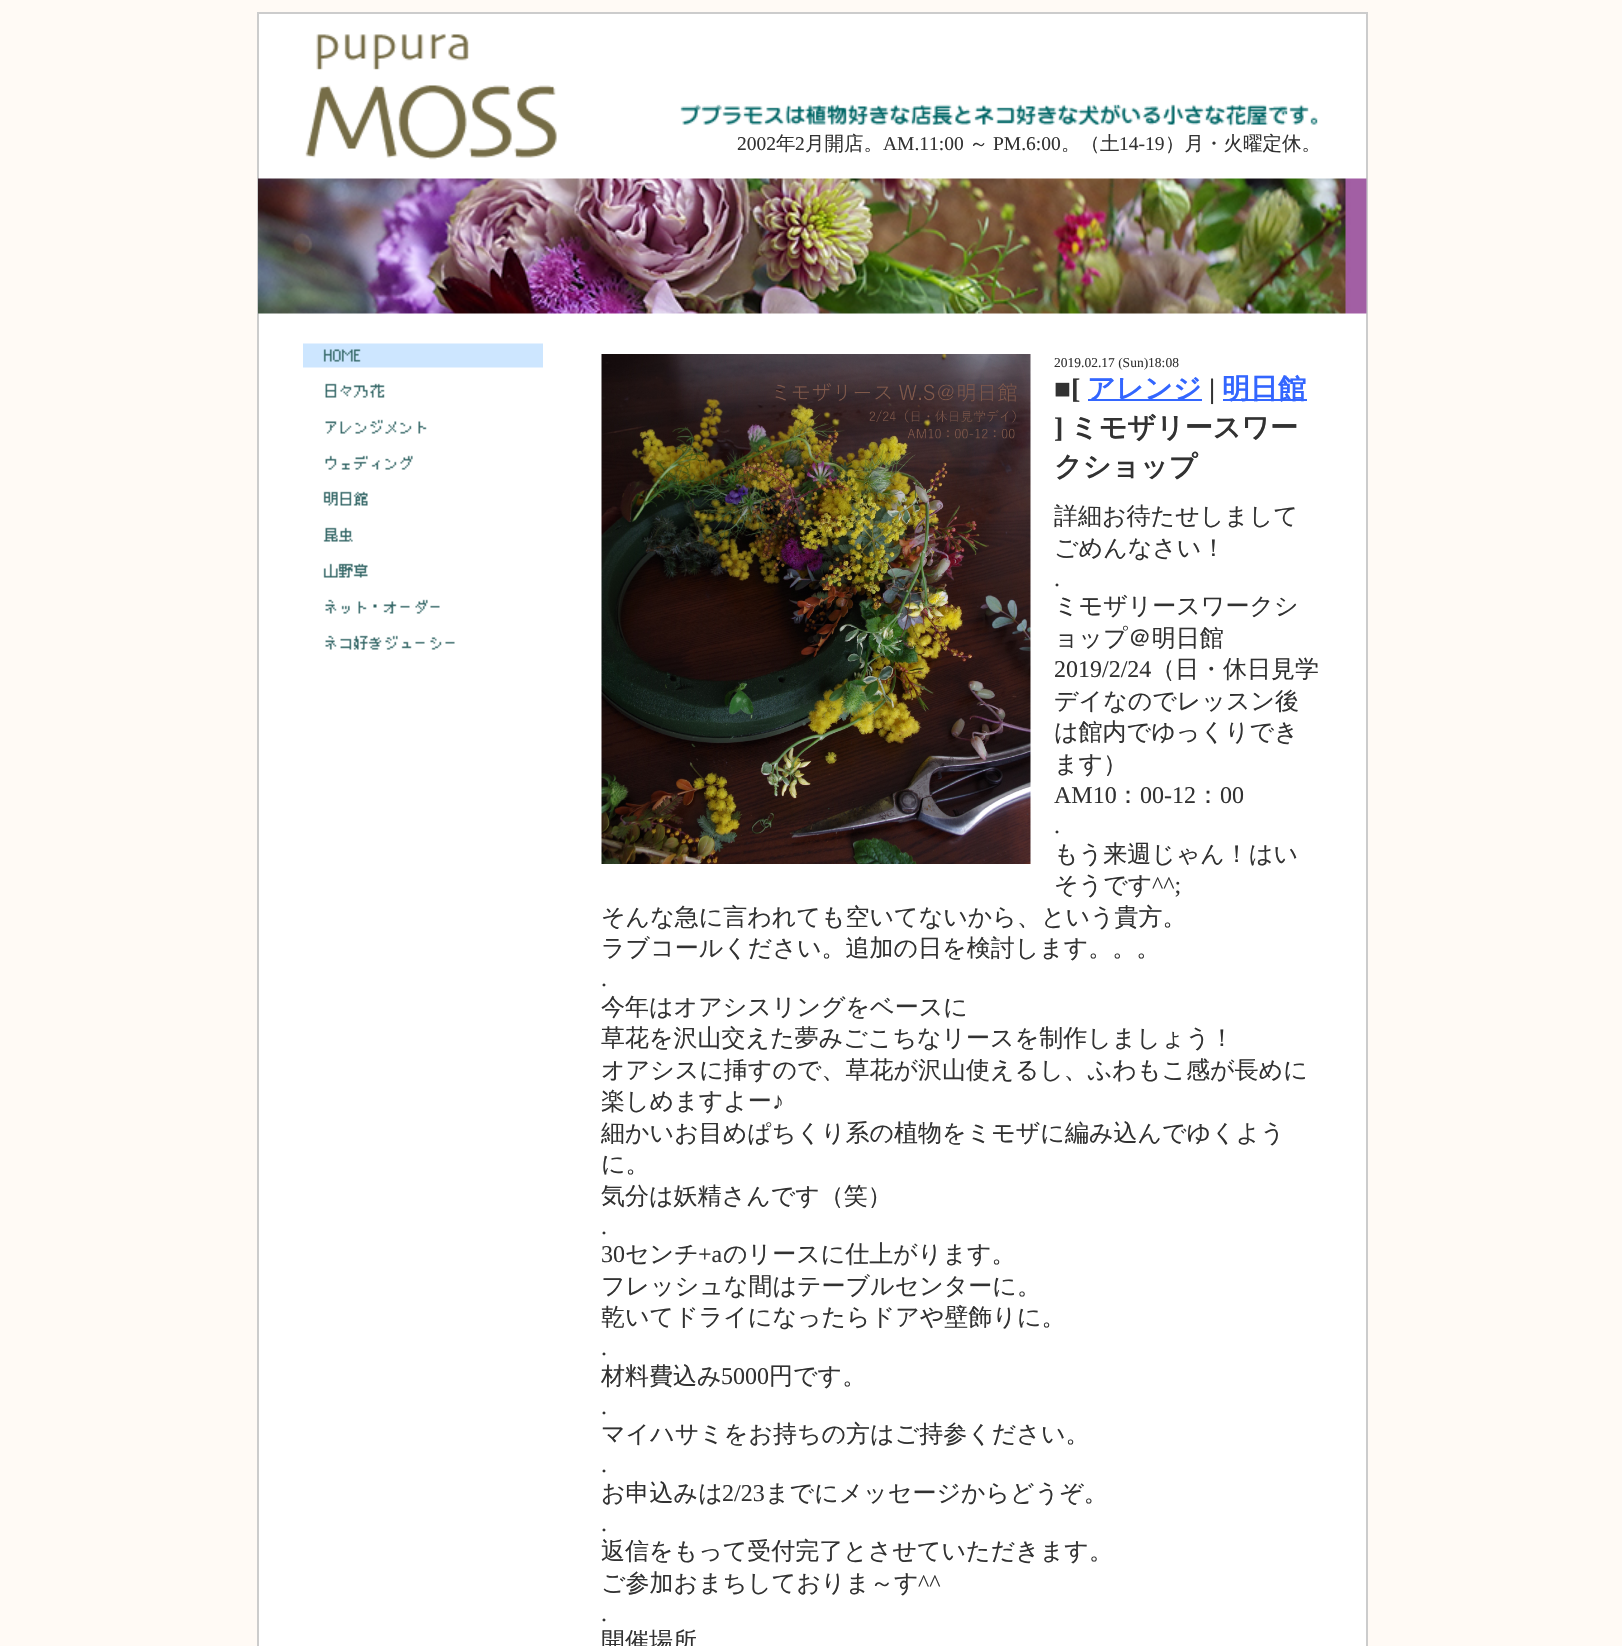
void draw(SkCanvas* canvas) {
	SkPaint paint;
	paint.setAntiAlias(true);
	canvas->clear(0xfffffaf5);
	paint.setColor(0xffffffff);
	canvas->drawRect(SkRect::MakeXYWH(258, 13, 1109, 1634), paint);
	paint.setStroke(true);
	paint.setStrokeWidth(2);
	paint.setColor(0xffcccccc);
	canvas->drawRect(SkRect::MakeXYWH(258, 13, 1109, 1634), paint);
	canvas->drawImageRect(SkImages::DeferredFromEncodedData(SkData::MakeFromFileName("img1.png")), SkRect::MakeXYWH(305, 33, 252, 127), SkSamplingOptions());
	canvas->drawImageRect(SkImages::DeferredFromEncodedData(SkData::MakeFromFileName("img2.png")), SkRect::MakeXYWH(680, 104, 638, 23), SkSamplingOptions());
	SkFont f1(fontMgr->matchFamilyStyle("Liberation Serif", SkFontStyle::Normal()), 19.5);
	f1.setSubpixel(true);
	paint.setStroke(false);
	paint.setColor(0xff323232);
	canvas->drawString("2002", 737, 150, f1, paint);
	SkFont f2(fontMgr->matchFamilyStyle("WenQuanYi Zen Hei", SkFontStyle(500, SkFontStyle::kNormal_Width, SkFontStyle::kUpright_Slant)), 19.5);
	f2.setSubpixel(true);
	canvas->drawString("年", 776, 150, f2, paint);
	canvas->drawString("2", 795, 150, f1, paint);
	canvas->drawString("月開店。", 805, 150, f2, paint);
	canvas->drawString("AM.11:00", 883, 150, f1, paint);
	canvas->drawString("～", 969, 150, f2, paint);
	canvas->drawString("PM.6:00", 993, 150, f1, paint);
	canvas->drawString("。（土", 1061, 150, f2, paint);
	canvas->drawString("14-19", 1119, 150, f1, paint);
	canvas->drawString("）月・火曜定休。", 1165, 150, f2, paint);
	canvas->drawImageRect(SkImages::DeferredFromEncodedData(SkData::MakeFromFileName("img3.png")), SkRect::MakeXYWH(258, 178, 1109, 136), SkSamplingOptions());
	canvas->drawImageRect(SkImages::DeferredFromEncodedData(SkData::MakeFromFileName("img4.png")), SkRect::MakeXYWH(303, 343, 240, 25), SkSamplingOptions());
	canvas->drawImageRect(SkImages::DeferredFromEncodedData(SkData::MakeFromFileName("img5.png")), SkRect::MakeXYWH(325, 383, 60, 15), SkSamplingOptions());
	canvas->drawImageRect(SkImages::DeferredFromEncodedData(SkData::MakeFromFileName("img6.png")), SkRect::MakeXYWH(325, 419, 102, 15), SkSamplingOptions());
	canvas->drawImageRect(SkImages::DeferredFromEncodedData(SkData::MakeFromFileName("img7.png")), SkRect::MakeXYWH(325, 455, 88, 15), SkSamplingOptions());
	canvas->drawImageRect(SkImages::DeferredFromEncodedData(SkData::MakeFromFileName("img8.png")), SkRect::MakeXYWH(323, 491, 45, 15), SkSamplingOptions());
	canvas->drawImageRect(SkImages::DeferredFromEncodedData(SkData::MakeFromFileName("img9.png")), SkRect::MakeXYWH(323, 527, 30, 15), SkSamplingOptions());
	canvas->drawImageRect(SkImages::DeferredFromEncodedData(SkData::MakeFromFileName("img10.png")), SkRect::MakeXYWH(323, 563, 45, 15), SkSamplingOptions());
	canvas->drawImageRect(SkImages::DeferredFromEncodedData(SkData::MakeFromFileName("img11.png")), SkRect::MakeXYWH(325, 599, 115, 15), SkSamplingOptions());
	canvas->drawImageRect(SkImages::DeferredFromEncodedData(SkData::MakeFromFileName("img12.png")), SkRect::MakeXYWH(325, 635, 130, 15), SkSamplingOptions());
	canvas->drawImageRect(SkImages::DeferredFromEncodedData(SkData::MakeFromFileName("img13.png")), SkRect::MakeXYWH(601, 354, 430, 510), SkSamplingOptions());
	SkFont f3(fontMgr->matchFamilyStyle("Liberation Serif", SkFontStyle::Normal()), 13.5);
	f3.setSubpixel(true);
	canvas->drawString("2019.02.17 (Sun)18:08", 1054, 367, f3, paint);
	SkFont f4(fontMgr->matchFamilyStyle("Liberation Serif", SkFontStyle::Bold()), 28);
	f4.setSubpixel(true);
	canvas->drawString("■[", 1054, 398, f4, paint);
	paint.setColor(0xff3366ff);
	canvas->drawRect(SkRect::MakeXYWH(1088, 399, 114, 2), paint);
	SkFont f5(fontMgr->matchFamilyStyle("WenQuanYi Zen Hei", SkFontStyle::Bold()), 28);
	f5.setSubpixel(true);
	canvas->drawString("アレンジ", 1087, 398, f5, paint);
	paint.setColor(0xff323232);
	canvas->drawString("|", 1209, 398, f4, paint);
	paint.setColor(0xff3366ff);
	canvas->drawRect(SkRect::MakeXYWH(1223, 399, 84, 2), paint);
	canvas->drawString("明日館", 1222, 398, f5, paint);
	paint.setColor(0xff323232);
	canvas->drawString("]", 1054, 437, f4, paint);
	canvas->drawString("ミモザリースワー", 1070, 437, f5, paint);
	canvas->drawString("クショップ", 1054, 476, f5, paint);
	SkFont f6(fontMgr->matchFamilyStyle("WenQuanYi Zen Hei", SkFontStyle(500, SkFontStyle::kNormal_Width, SkFontStyle::kUpright_Slant)), 24);
	f6.setSubpixel(true);
	canvas->drawString("詳細お待たせしまして", 1054, 524, f6, paint);
	canvas->drawString("ごめんなさい！", 1054, 556, f6, paint);
	SkFont f7(fontMgr->matchFamilyStyle("Liberation Serif", SkFontStyle::Normal()), 24);
	f7.setSubpixel(true);
	canvas->drawString(".", 1054, 586, f7, paint);
	canvas->drawString("ミモザリースワークシ", 1054, 614, f6, paint);
	canvas->drawString("ョップ＠明日館", 1054, 646, f6, paint);
	canvas->drawString("2019/2/24", 1054, 677, f7, paint);
	canvas->drawString("（日・休日見学", 1151, 677, f6, paint);
	canvas->drawString("デイなのでレッスン後", 1054, 709, f6, paint);
	canvas->drawString("は館内でゆっくりでき", 1054, 740, f6, paint);
	canvas->drawString("ます）", 1054, 772, f6, paint);
	canvas->drawString("AM10", 1054, 803, f7, paint);
	canvas->drawString("：", 1116, 803, f6, paint);
	canvas->drawString("00-12", 1140, 803, f7, paint);
	canvas->drawString("：", 1196, 803, f6, paint);
	canvas->drawString("00", 1220, 803, f7, paint);
	canvas->drawString(".", 1054, 833, f7, paint);
	canvas->drawString("もう来週じゃん！はい", 1054, 862, f6, paint);
	canvas->drawString("そうです", 1054, 893, f6, paint);
	canvas->drawString("^^;", 1152, 893, f7, paint);
	canvas->drawString("そんな急に言われても空いてないから、という貴方。", 601, 925, f6, paint);
	canvas->drawString("ラブコールください。追加の日を検討します。。。", 601, 956, f6, paint);
	canvas->drawString(".", 601, 986, f7, paint);
	canvas->drawString("今年はオアシスリングをベースに", 601, 1015, f6, paint);
	canvas->drawString("草花を沢山交えた夢みごこちなリースを制作しましょう！", 601, 1046, f6, paint);
	canvas->drawString("オアシスに挿すので、草花が沢山使えるし、ふわもこ感が長めに", 601, 1078, f6, paint);
	canvas->drawString("楽しめますよー", 601, 1109, f6, paint);
	canvas->drawString("♪", 772, 1109, f7, paint);
	canvas->drawString("細かいお目めぱちくり系の植物をミモザに編み込んでゆくよう", 601, 1141, f6, paint);
	canvas->drawString("に。", 601, 1172, f6, paint);
	canvas->drawString("気分は妖精さんです（笑）", 601, 1204, f6, paint);
	canvas->drawString(".", 601, 1234, f7, paint);
	canvas->drawString("30", 601, 1262, f7, paint);
	canvas->drawString("センチ", 625, 1262, f6, paint);
	canvas->drawString("+a", 698, 1262, f7, paint);
	canvas->drawString("のリースに仕上がります。", 723, 1262, f6, paint);
	canvas->drawString("フレッシュな間はテーブルセンターに。", 601, 1294, f6, paint);
	canvas->drawString("乾いてドライになったらドアや壁飾りに。", 601, 1325, f6, paint);
	canvas->drawString(".", 601, 1355, f7, paint);
	canvas->drawString("材料費込み", 601, 1384, f6, paint);
	canvas->drawString("5000", 721, 1384, f7, paint);
	canvas->drawString("円です。", 769, 1384, f6, paint);
	canvas->drawString(".", 601, 1414, f7, paint);
	canvas->drawString("マイハサミをお持ちの方はご持参ください。", 601, 1442, f6, paint);
	canvas->drawString(".", 601, 1472, f7, paint);
	canvas->drawString("お申込みは", 601, 1501, f6, paint);
	canvas->drawString("2/23", 722, 1501, f7, paint);
	canvas->drawString("までにメッセージからどうぞ。", 765, 1501, f6, paint);
	canvas->drawString(".", 601, 1531, f7, paint);
	canvas->drawString("返信をもって受付完了とさせていただきます。", 601, 1559, f6, paint);
	canvas->drawString("ご参加おまちしておりま～す", 601, 1591, f6, paint);
	canvas->drawString("^^", 918, 1591, f7, paint);
	canvas->drawString(".", 601, 1621, f7, paint);
	canvas->drawString("開催場所", 601, 1649, f6, paint);
}
